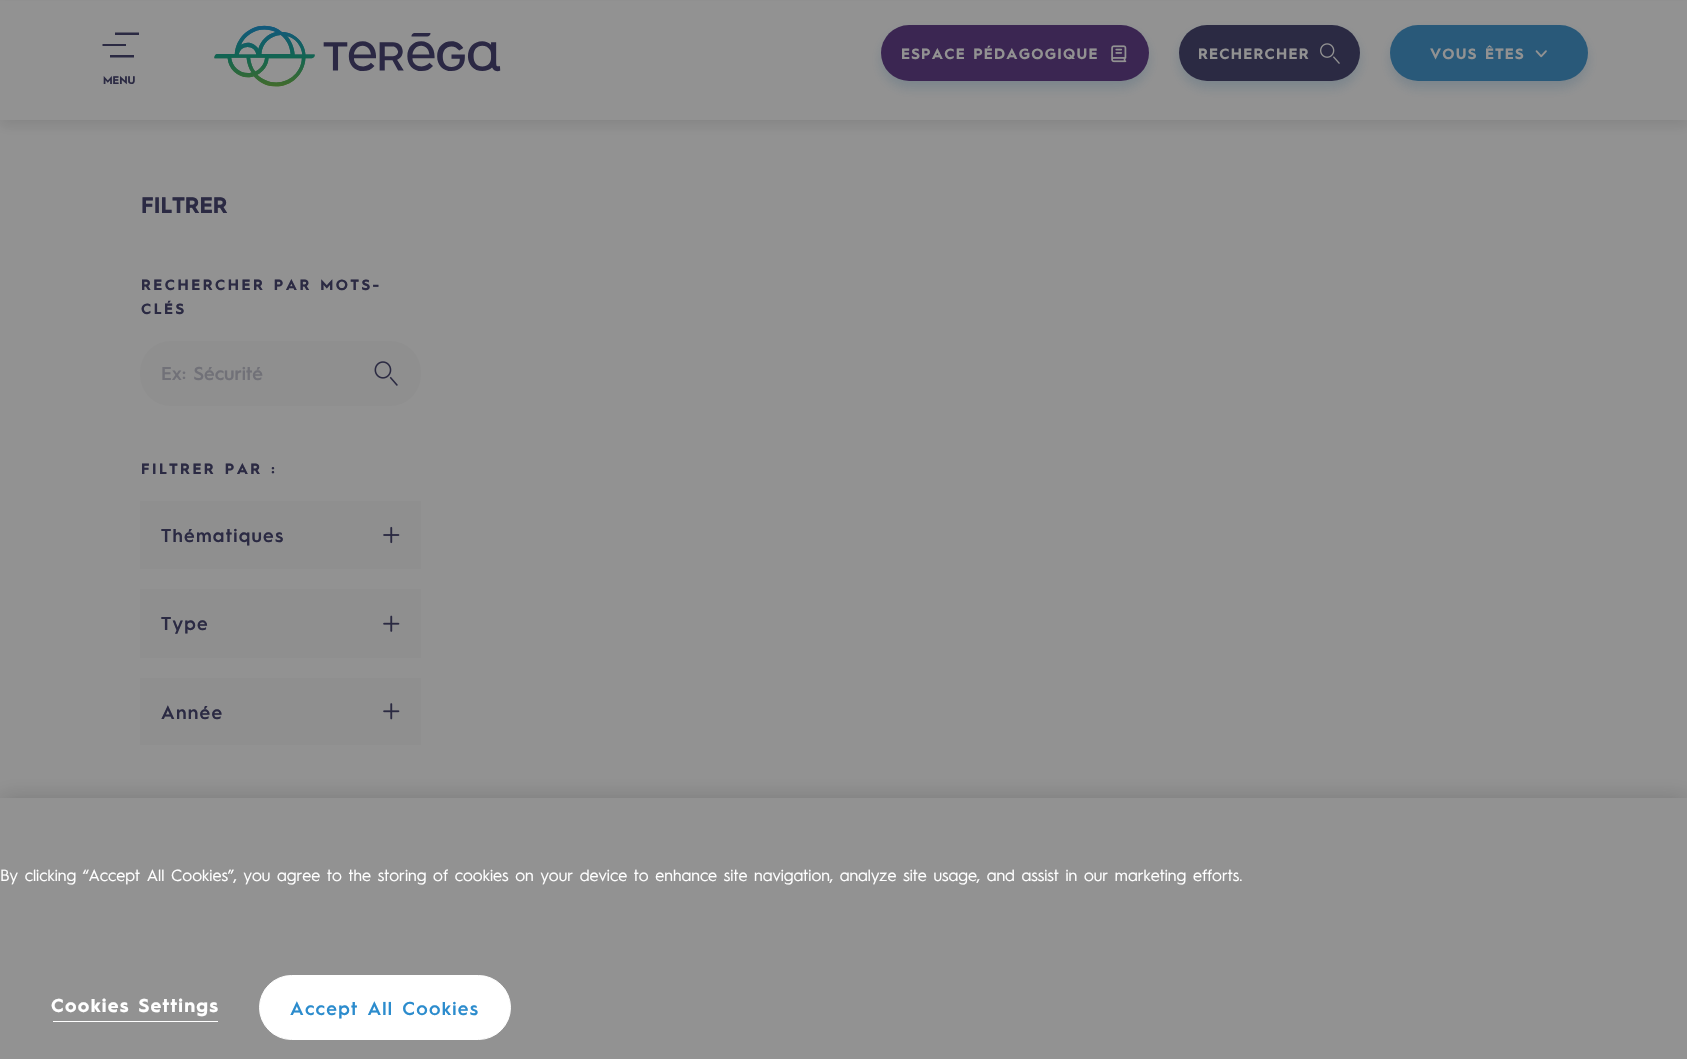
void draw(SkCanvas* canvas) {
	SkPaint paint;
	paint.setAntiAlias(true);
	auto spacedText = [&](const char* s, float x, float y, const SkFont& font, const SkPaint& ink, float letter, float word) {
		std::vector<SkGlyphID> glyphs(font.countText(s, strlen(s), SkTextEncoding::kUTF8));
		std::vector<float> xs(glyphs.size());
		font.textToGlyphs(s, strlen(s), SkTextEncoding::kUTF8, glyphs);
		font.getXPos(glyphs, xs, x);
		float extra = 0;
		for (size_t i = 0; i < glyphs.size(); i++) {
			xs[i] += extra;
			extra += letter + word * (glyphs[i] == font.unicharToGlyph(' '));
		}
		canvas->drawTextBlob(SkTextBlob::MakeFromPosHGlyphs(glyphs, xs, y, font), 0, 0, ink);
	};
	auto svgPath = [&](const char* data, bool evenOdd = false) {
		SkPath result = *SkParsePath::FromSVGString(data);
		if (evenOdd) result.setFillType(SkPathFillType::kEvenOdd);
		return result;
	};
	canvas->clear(0xff929292);
	paint.setColor(0x1a131313);
	paint.setMaskFilter(SkMaskFilter::MakeBlur(kNormal_SkBlurStyle, 6));
	canvas->drawRect(SkRect::MakeXYWH(0, 6, 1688, 120), paint);
	paint.setMaskFilter(nullptr);
	paint.setColor(0xff929292);
	canvas->drawRect(SkRect::MakeXYWH(0, 1, 1687, 119), paint);
	paint.setColor(0x33205275);
	paint.setMaskFilter(SkMaskFilter::MakeBlur(kNormal_SkBlurStyle, 6));
	canvas->drawRoundRect(SkRect::MakeXYWH(881, 31, 268, 57), 28.5, 28.5, paint);
	paint.setMaskFilter(nullptr);
	paint.setColor(0xff3b2652);
	canvas->drawRoundRect(SkRect::MakeXYWH(881, 25, 268, 56), 28, 28, paint);
	SkFont f1(fontMgr->matchFamilyStyle("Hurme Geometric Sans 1", SkFontStyle::Bold()), 15);
	f1.setSubpixel(true);
	paint.setColor(0xff929292);
	spacedText("ESPACE PÉDAGOGIQUE", 901, 59, f1, paint, 1.25, 0);
	canvas->drawImageRect(SkImages::DeferredFromEncodedData(SkData::MakeFromFileName("img1.png")), SkRect::MakeXYWH(1111, 45, 16, 18), SkSamplingOptions());
	paint.setColor(0x33205275);
	paint.setMaskFilter(SkMaskFilter::MakeBlur(kNormal_SkBlurStyle, 6));
	canvas->drawRoundRect(SkRect::MakeXYWH(1179, 31, 181, 57), 28.5, 28.5, paint);
	paint.setMaskFilter(nullptr);
	paint.setColor(0xff2b2a43);
	canvas->drawRoundRect(SkRect::MakeXYWH(1179, 25, 181, 56), 28, 28, paint);
	paint.setColor(0xff929292);
	spacedText("RECHERCHER", 1198, 59, f1, paint, 1.25, 0);
	canvas->drawImageRect(SkImages::DeferredFromEncodedData(SkData::MakeFromFileName("img2.png")), SkRect::MakeXYWH(1320, 43, 20, 21), SkSamplingOptions());
	paint.setColor(0x33205275);
	paint.setMaskFilter(SkMaskFilter::MakeBlur(kNormal_SkBlurStyle, 6));
	canvas->drawRoundRect(SkRect::MakeXYWH(1390, 31, 198, 57), 28.5, 28.5, paint);
	paint.setMaskFilter(nullptr);
	paint.setColor(0xff295979);
	canvas->drawRoundRect(SkRect::MakeXYWH(1390, 25, 198, 56), 28, 28, paint);
	paint.setColor(0xff929292);
	spacedText("VOUS ÊTES", 1430, 59, f1, paint, 1.25, 0);
	canvas->drawImageRect(SkImages::DeferredFromEncodedData(SkData::MakeFromFileName("img3.png")), SkRect::MakeXYWH(1535, 50, 12, 8), SkSamplingOptions());
	paint.setColor(0xff2b2a43);
	canvas->drawPath(svgPath("M134 55V57.5H110V55ZM126 44V46H102.5V44ZM139 32.5V35H115V32.5Z", true), paint);
	SkFont f2(fontMgr->matchFamilyStyle("Hurme Geometric Sans 1", SkFontStyle::Bold()), 11);
	f2.setSubpixel(true);
	canvas->drawString("MENU", 103, 84, f2, paint);
	canvas->drawImageRect(SkImages::DeferredFromEncodedData(SkData::MakeFromFileName("img4.png")), SkRect::MakeXYWH(214, 25, 287, 62), SkSamplingOptions());
	SkFont f3(fontMgr->matchFamilyStyle("Hurme Geometric Sans 1", SkFontStyle::Bold()), 22.5);
	f3.setSubpixel(true);
	canvas->drawString("FILTRER", 141, 213, f3, paint);
	spacedText("RECHERCHER PAR MOTS-", 141, 290, f1, paint, 2.5, 0);
	spacedText("CLÉS", 141, 314, f1, paint, 2.5, 0);
	paint.setColor(0xff8f8f8f);
	canvas->drawRoundRect(SkRect::MakeXYWH(140, 341, 281, 65), 31, 31, paint);
	canvas->drawImageRect(SkImages::DeferredFromEncodedData(SkData::MakeFromFileName("img5.png")), SkRect::MakeXYWH(374, 361, 24, 25), SkSamplingOptions());
	SkFont f4(fontMgr->matchFamilyStyle("Hurme Geometric Sans 1", SkFontStyle(600, SkFontStyle::kNormal_Width, SkFontStyle::kUpright_Slant)), 18.75);
	f4.setSubpixel(true);
	paint.setColor(0xff717178);
	canvas->drawString("Ex: Sécurité", 161, 380, f4, paint);
	paint.setColor(0xff2b2a43);
	spacedText("FILTRER PAR :", 141, 474, f1, paint, 2.5, 0);
	paint.setColor(0xff8f8f8f);
	canvas->drawRect(SkRect::MakeXYWH(140, 501, 281, 68), paint);
	paint.setColor(0xff2b2a43);
	spacedText("Thématiques", 161, 542, f4, paint, 1.25, 0);
	canvas->drawImageRect(SkImages::DeferredFromEncodedData(SkData::MakeFromFileName("img6.png")), SkRect::MakeXYWH(383, 526, 17, 18), SkSamplingOptions());
	paint.setColor(0xff8f8f8f);
	canvas->drawRect(SkRect::MakeXYWH(140, 589, 281, 69), paint);
	paint.setColor(0xff2b2a43);
	spacedText("Type", 161, 630, f4, paint, 1.25, 0);
	canvas->drawImageRect(SkImages::DeferredFromEncodedData(SkData::MakeFromFileName("img7.png")), SkRect::MakeXYWH(383, 615, 17, 17), SkSamplingOptions());
	paint.setColor(0xff8f8f8f);
	canvas->drawRect(SkRect::MakeXYWH(140, 678, 281, 67), paint);
	paint.setColor(0xff2b2a43);
	spacedText("Année", 161, 719, f4, paint, 1.25, 0);
	canvas->drawImageRect(SkImages::DeferredFromEncodedData(SkData::MakeFromFileName("img8.png")), SkRect::MakeXYWH(383, 703, 17, 17), SkSamplingOptions());
	paint.setColor(0x33131313);
	paint.setMaskFilter(SkMaskFilter::MakeBlur(kNormal_SkBlurStyle, 11));
	canvas->drawRect(SkRect::MakeXYWH(0, 798, 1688, 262), paint);
	paint.setMaskFilter(nullptr);
	paint.setColor(0xff929292);
	canvas->drawRect(SkRect::MakeXYWH(0, 798, 1687, 261), paint);
	SkFont f5(fontMgr->matchFamilyStyle("Hurme Geometric Sans 1", SkFontStyle::Normal()), 16.25);
	f5.setSubpixel(true);
	paint.setColor(0xffffffff);
	canvas->drawString("By clicking “Accept All Cookies”, you agree to the storing of cookies on your device to enhance site navigation, analyze site usage, and assist in our marketing efforts.", 0, 881, f5, paint);
	canvas->drawRect(SkRect::MakeXYWH(53, 1021, 165, 1), paint);
	SkFont f6(fontMgr->matchFamilyStyle("Hurme Geometric Sans 1", SkFontStyle::Bold()), 18.75);
	f6.setSubpixel(true);
	spacedText("Cookies Settings", 51, 1012, f6, paint, 1.25, 0);
	canvas->drawRoundRect(SkRect::MakeXYWH(259.5, 975.5, 251, 64), 32, 32, paint);
	paint.setStroke(true);
	paint.setStrokeWidth(1);
	canvas->drawRoundRect(SkRect::MakeXYWH(259.5, 975.5, 251, 64), 32, 32, paint);
	paint.setStroke(false);
	paint.setColor(0xff2c8ccd);
	spacedText("Accept All Cookies", 290, 1015, f4, paint, 1.25, 0);
}
